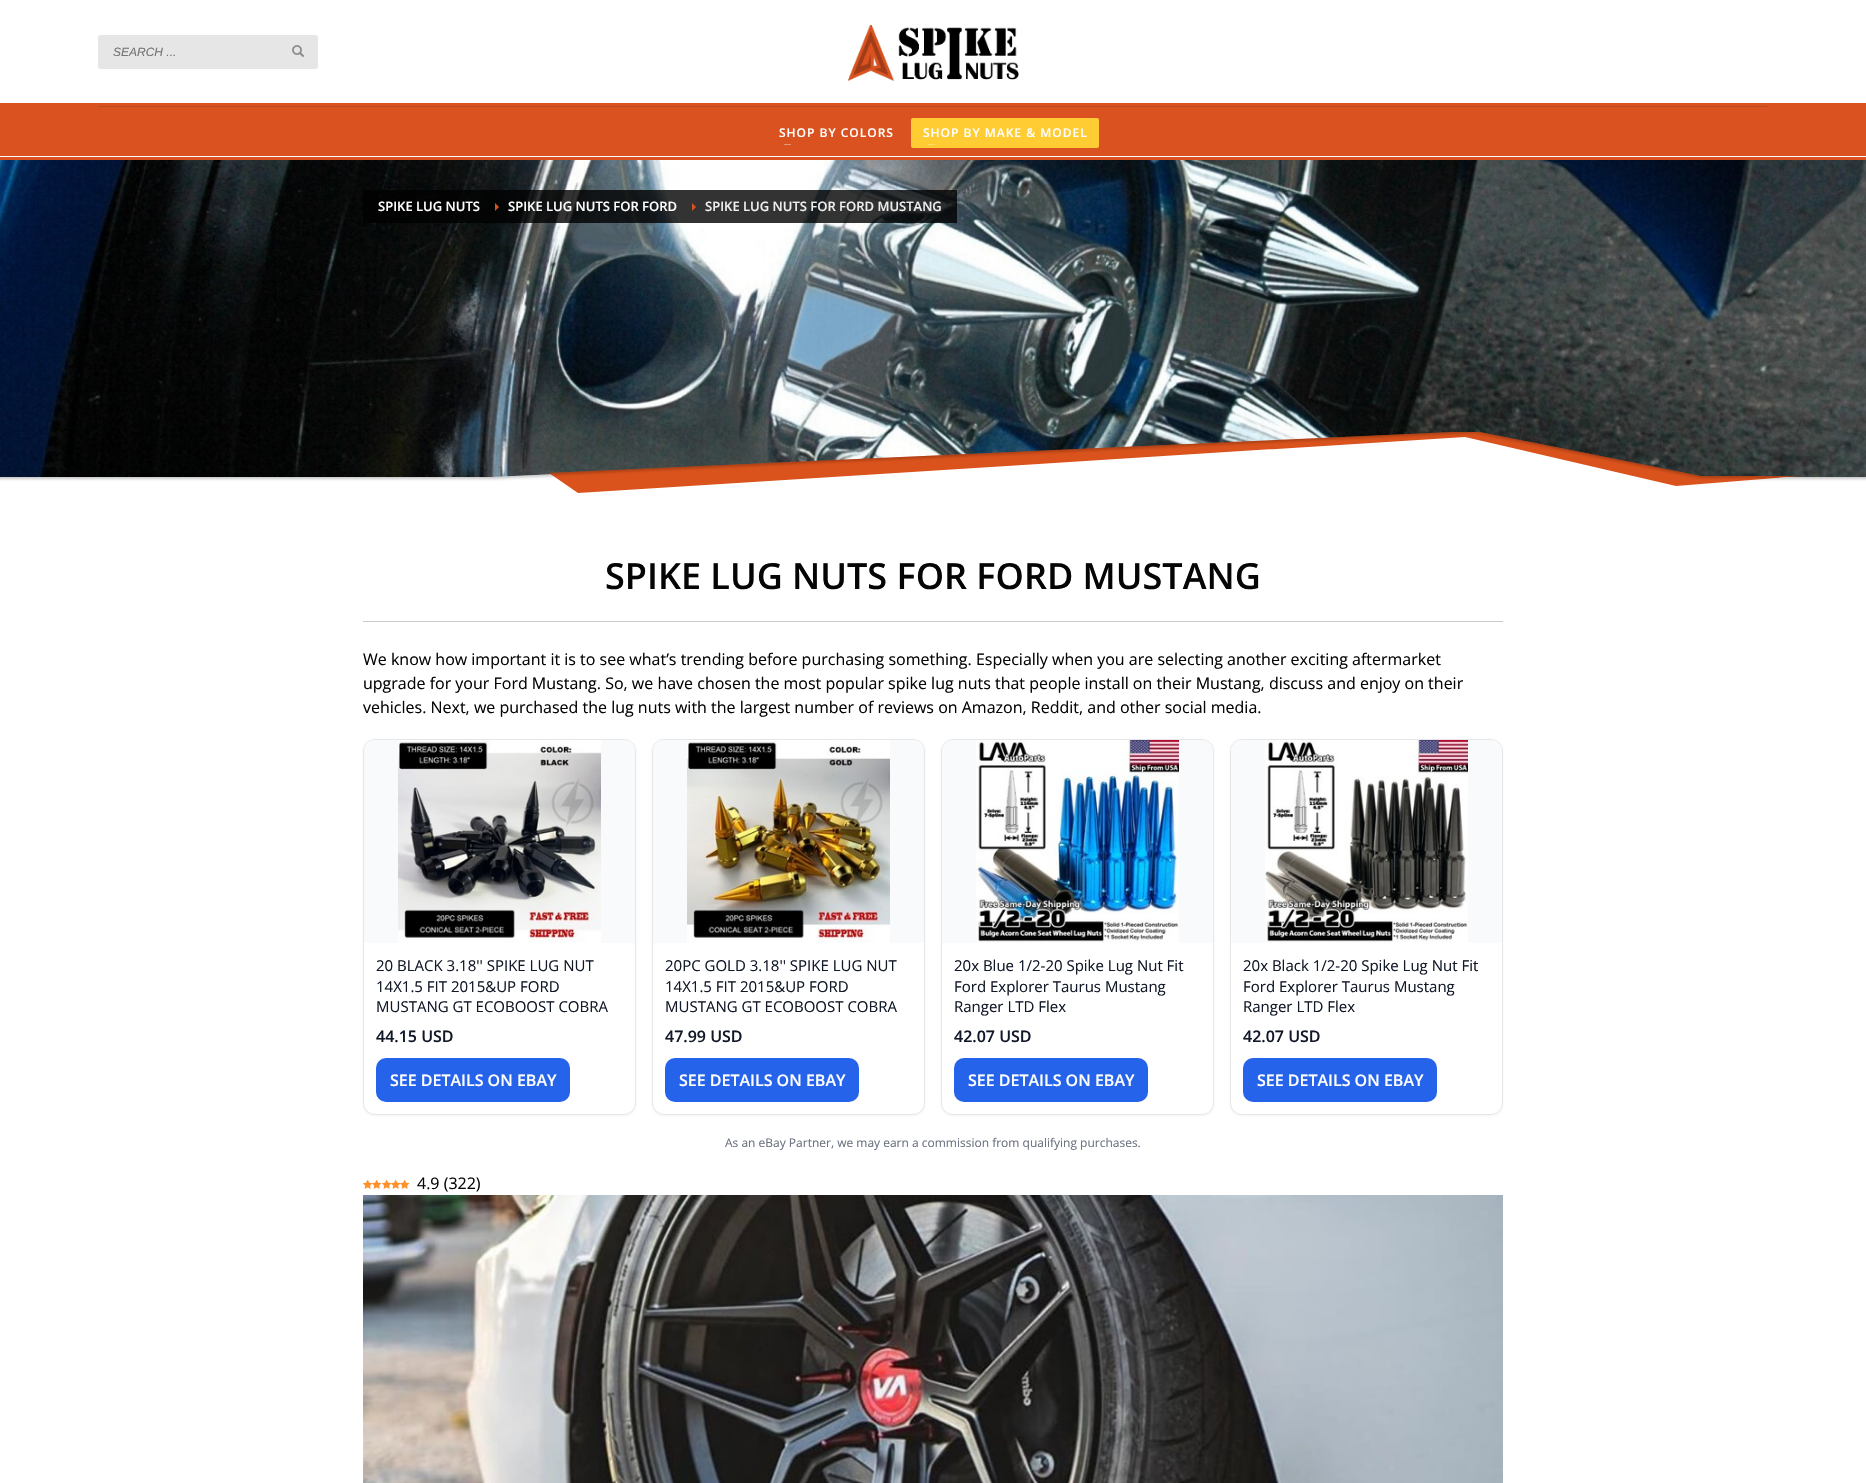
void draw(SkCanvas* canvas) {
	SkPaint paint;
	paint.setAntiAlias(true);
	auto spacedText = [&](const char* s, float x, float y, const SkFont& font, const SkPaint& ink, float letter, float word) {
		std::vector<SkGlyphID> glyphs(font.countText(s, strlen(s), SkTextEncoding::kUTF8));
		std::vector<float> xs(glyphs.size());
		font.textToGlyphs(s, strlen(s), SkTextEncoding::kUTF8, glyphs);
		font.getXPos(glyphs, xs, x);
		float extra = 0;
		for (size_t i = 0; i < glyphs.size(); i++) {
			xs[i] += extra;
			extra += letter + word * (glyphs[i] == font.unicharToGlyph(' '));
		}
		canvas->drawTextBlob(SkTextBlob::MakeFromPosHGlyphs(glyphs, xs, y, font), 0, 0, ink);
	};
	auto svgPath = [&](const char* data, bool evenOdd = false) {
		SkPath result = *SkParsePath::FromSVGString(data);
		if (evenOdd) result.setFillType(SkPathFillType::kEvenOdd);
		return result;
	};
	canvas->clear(0xffffffff);
	paint.setColor(0xffda521f);
	canvas->drawRect(SkRect::MakeXYWH(0, 157, 1866, 3), paint);
	paint.setColor(0xffe6e6e6);
	canvas->drawRoundRect(SkRect::MakeXYWH(98, 35, 220, 34), 3, 3, paint);
	SkFont f1(fontMgr->matchFamilyStyle("Liberation Sans", SkFontStyle::Italic()), 12);
	f1.setSubpixel(true);
	paint.setColor(0xff757575);
	canvas->drawString("SEARCH ...", 113, 56, f1, paint);
	canvas->drawImageRect(SkImages::DeferredFromEncodedData(SkData::MakeFromFileName("img1.png")), SkRect::MakeXYWH(292, 45, 12, 12), SkSamplingOptions());
	canvas->drawImageRect(SkImages::DeferredFromEncodedData(SkData::MakeFromFileName("img2.png")), SkRect::MakeXYWH(847, 25, 172, 56), SkSamplingOptions());
	paint.setColor(0xffda521f);
	canvas->drawRect(SkRect::MakeXYWH(0, 103, 1866, 53), paint);
	paint.setColor(0xffb94c23);
	canvas->drawRect(SkRect::MakeXYWH(98, 106, 1670, 1), paint);
	SkFont f2(fontMgr->matchFamilyStyle("Open Sans", SkFontStyle(600, SkFontStyle::kNormal_Width, SkFontStyle::kUpright_Slant)), 12);
	f2.setSubpixel(true);
	paint.setColor(0xffffffff);
	spacedText("SHOP BY COLORS", 779, 137, f2, paint, 1, 0);
	paint.setColor(0xffe99779);
	canvas->drawRect(SkRect::MakeXYWH(784, 144, 7, 1), paint);
	paint.setColor(0xffffcc33);
	canvas->drawRoundRect(SkRect::MakeXYWH(911, 118, 188, 30), 2, 2, paint);
	paint.setColor(0xffffffff);
	spacedText("SHOP BY MAKE & MODEL", 923, 137, f2, paint, 1, 0);
	paint.setColor(0xffffda6c);
	canvas->drawRect(SkRect::MakeXYWH(928, 144, 7, 1), paint);
	canvas->drawImageRect(SkImages::DeferredFromEncodedData(SkData::MakeFromFileName("img3.png")), SkRect::MakeXYWH(0, 160, 1866, 317), SkSamplingOptions());
	paint.setColor(0xcc000000);
	canvas->drawRect(SkRect::MakeXYWH(363, 190, 122, 33), paint);
	SkFont f3(fontMgr->matchFamilyStyle("Open Sans", SkFontStyle(600, SkFontStyle::kNormal_Width, SkFontStyle::kUpright_Slant)), 13);
	f3.setSubpixel(true);
	paint.setColor(0xffffffff);
	canvas->drawString("SPIKE LUG NUTS", 378, 211, f3, paint);
	paint.setColor(0xcc000000);
	canvas->drawRect(SkRect::MakeXYWH(485, 190, 197, 33), paint);
	paint.setColor(0xffda521f);
	canvas->drawPath(svgPath("M495 211V203L499 207Z"), paint);
	paint.setColor(0xffffffff);
	canvas->drawString("SPIKE LUG NUTS FOR FORD", 508, 211, f3, paint);
	paint.setColor(0xcc000000);
	canvas->drawRect(SkRect::MakeXYWH(682, 190, 275, 33), paint);
	paint.setColor(0xffda521f);
	canvas->drawPath(svgPath("M692 211V203L696 207Z"), paint);
	paint.setColor(0xffeeeeee);
	canvas->drawString("SPIKE LUG NUTS FOR FORD MUSTANG", 705, 211, f3, paint);
	canvas->drawImageRect(SkImages::DeferredFromEncodedData(SkData::MakeFromFileName("img4.png")), SkRect::MakeXYWH(0, 432, 1866, 64), SkSamplingOptions());
	paint.setColor(0xffcbcbcb);
	canvas->drawRect(SkRect::MakeXYWH(363, 621, 1140, 1), paint);
	SkFont f4(fontMgr->matchFamilyStyle("Open Sans", SkFontStyle(600, SkFontStyle::kNormal_Width, SkFontStyle::kUpright_Slant)), 36);
	f4.setSubpixel(true);
	paint.setColor(0xff050505);
	canvas->drawString("SPIKE LUG NUTS FOR FORD MUSTANG", 605, 589, f4, paint);
	SkFont f5(fontMgr->matchFamilyStyle("Open Sans", SkFontStyle::Normal()), 16);
	f5.setSubpixel(true);
	canvas->drawString("We know how important it is to see what’s trending before purchasing something. Especially when you are selecting another exciting aftermarket", 363, 665, f5, paint);
	canvas->drawString("upgrade for your Ford Mustang. So, we have chosen the most popular spike lug nuts that people install on their Mustang, discuss and enjoy on their", 363, 689, f5, paint);
	canvas->drawString("vehicles. Next, we purchased the lug nuts with the largest number of reviews on Amazon, Reddit, and other social media.", 363, 713, f5, paint);
	paint.setColor(0x0a000000);
	paint.setMaskFilter(SkMaskFilter::MakeBlur(kNormal_SkBlurStyle, 1));
	canvas->drawRoundRect(SkRect::MakeXYWH(363, 740, 273, 376), 12, 12, paint);
	paint.setMaskFilter(nullptr);
	paint.setColor(0xffffffff);
	canvas->drawRoundRect(SkRect::MakeXYWH(363.5, 739.5, 272, 375), 11.5, 11.5, paint);
	paint.setStroke(true);
	paint.setStrokeWidth(1);
	paint.setColor(0xffe5e7eb);
	canvas->drawRoundRect(SkRect::MakeXYWH(363.5, 739.5, 272, 375), 11.5, 11.5, paint);
	paint.setStroke(false);
	paint.setColor(0xfff8fafc);
	canvas->drawPath(svgPath("M375 740H624C630 740 635 745 635 751V943H364V751C364 745 369 740 375 740Z"), paint);
	canvas->drawImageRect(SkImages::DeferredFromEncodedData(SkData::MakeFromFileName("img5.png")), SkRect::MakeXYWH(398, 740, 203, 203), SkSamplingOptions());
	SkFont f6(fontMgr->matchFamilyStyle("Open Sans", SkFontStyle::Normal()), 15);
	f6.setSubpixel(true);
	paint.setColor(0xff111827);
	canvas->drawString("20 BLACK 3.18'' SPIKE LUG NUT", 376, 971, f6, paint);
	canvas->drawString("14X1.5 FIT 2015&UP FORD", 376, 992, f6, paint);
	canvas->drawString("MUSTANG GT ECOBOOST COBRA", 376, 1012, f6, paint);
	SkFont f7(fontMgr->matchFamilyStyle("Open Sans", SkFontStyle(600, SkFontStyle::kNormal_Width, SkFontStyle::kUpright_Slant)), 16);
	f7.setSubpixel(true);
	canvas->drawString("44.15 USD", 376, 1042, f7, paint);
	paint.setColor(0xff2563eb);
	canvas->drawRoundRect(SkRect::MakeXYWH(376, 1058, 194, 44), 10, 10, paint);
	paint.setColor(0xffffffff);
	canvas->drawString("SEE DETAILS ON EBAY", 390, 1086, f7, paint);
	paint.setColor(0x0a000000);
	paint.setMaskFilter(SkMaskFilter::MakeBlur(kNormal_SkBlurStyle, 1));
	canvas->drawRoundRect(SkRect::MakeXYWH(652, 740, 273, 376), 12, 12, paint);
	paint.setMaskFilter(nullptr);
	paint.setColor(0xffffffff);
	canvas->drawRoundRect(SkRect::MakeXYWH(652.5, 739.5, 272, 375), 11.5, 11.5, paint);
	paint.setStroke(true);
	paint.setColor(0xffe5e7eb);
	canvas->drawRoundRect(SkRect::MakeXYWH(652.5, 739.5, 272, 375), 11.5, 11.5, paint);
	paint.setStroke(false);
	paint.setColor(0xfff8fafc);
	canvas->drawPath(svgPath("M664 740H913C919 740 924 745 924 751V943H653V751C653 745 658 740 664 740Z"), paint);
	canvas->drawImageRect(SkImages::DeferredFromEncodedData(SkData::MakeFromFileName("img6.png")), SkRect::MakeXYWH(687, 740, 203, 203), SkSamplingOptions());
	paint.setColor(0xff111827);
	canvas->drawString("20PC GOLD 3.18'' SPIKE LUG NUT", 665, 971, f6, paint);
	canvas->drawString("14X1.5 FIT 2015&UP FORD", 665, 992, f6, paint);
	canvas->drawString("MUSTANG GT ECOBOOST COBRA", 665, 1012, f6, paint);
	canvas->drawString("47.99 USD", 665, 1042, f7, paint);
	paint.setColor(0xff2563eb);
	canvas->drawRoundRect(SkRect::MakeXYWH(665, 1058, 194, 44), 10, 10, paint);
	paint.setColor(0xffffffff);
	canvas->drawString("SEE DETAILS ON EBAY", 679, 1086, f7, paint);
	paint.setColor(0x0a000000);
	paint.setMaskFilter(SkMaskFilter::MakeBlur(kNormal_SkBlurStyle, 1));
	canvas->drawRoundRect(SkRect::MakeXYWH(941, 740, 273, 376), 12, 12, paint);
	paint.setMaskFilter(nullptr);
	paint.setColor(0xffffffff);
	canvas->drawRoundRect(SkRect::MakeXYWH(941.5, 739.5, 272, 375), 11.5, 11.5, paint);
	paint.setStroke(true);
	paint.setColor(0xffe5e7eb);
	canvas->drawRoundRect(SkRect::MakeXYWH(941.5, 739.5, 272, 375), 11.5, 11.5, paint);
	paint.setStroke(false);
	paint.setColor(0xfff8fafc);
	canvas->drawPath(svgPath("M953 740H1202C1208 740 1213 745 1213 751V943H942V751C942 745 947 740 953 740Z"), paint);
	canvas->drawImageRect(SkImages::DeferredFromEncodedData(SkData::MakeFromFileName("img7.png")), SkRect::MakeXYWH(976, 740, 203, 203), SkSamplingOptions());
	paint.setColor(0xff111827);
	canvas->drawString("20x Blue 1/2-20 Spike Lug Nut Fit", 954, 971, f6, paint);
	canvas->drawString("Ford Explorer Taurus Mustang", 954, 992, f6, paint);
	canvas->drawString("Ranger LTD Flex", 954, 1012, f6, paint);
	canvas->drawString("42.07 USD", 954, 1042, f7, paint);
	paint.setColor(0xff2563eb);
	canvas->drawRoundRect(SkRect::MakeXYWH(954, 1058, 194, 44), 10, 10, paint);
	paint.setColor(0xffffffff);
	canvas->drawString("SEE DETAILS ON EBAY", 968, 1086, f7, paint);
	paint.setColor(0x0a000000);
	paint.setMaskFilter(SkMaskFilter::MakeBlur(kNormal_SkBlurStyle, 1));
	canvas->drawRoundRect(SkRect::MakeXYWH(1230, 740, 273, 376), 12, 12, paint);
	paint.setMaskFilter(nullptr);
	paint.setColor(0xffffffff);
	canvas->drawRoundRect(SkRect::MakeXYWH(1230.5, 739.5, 272, 375), 11.5, 11.5, paint);
	paint.setStroke(true);
	paint.setColor(0xffe5e7eb);
	canvas->drawRoundRect(SkRect::MakeXYWH(1230.5, 739.5, 272, 375), 11.5, 11.5, paint);
	paint.setStroke(false);
	paint.setColor(0xfff8fafc);
	canvas->drawPath(svgPath("M1242 740H1491C1497 740 1502 745 1502 751V943H1231V751C1231 745 1236 740 1242 740Z"), paint);
	canvas->drawImageRect(SkImages::DeferredFromEncodedData(SkData::MakeFromFileName("img8.png")), SkRect::MakeXYWH(1265, 740, 203, 203), SkSamplingOptions());
	paint.setColor(0xff111827);
	canvas->drawString("20x Black 1/2-20 Spike Lug Nut Fit", 1243, 971, f6, paint);
	canvas->drawString("Ford Explorer Taurus Mustang", 1243, 992, f6, paint);
	canvas->drawString("Ranger LTD Flex", 1243, 1012, f6, paint);
	canvas->drawString("42.07 USD", 1243, 1042, f7, paint);
	paint.setColor(0xff2563eb);
	canvas->drawRoundRect(SkRect::MakeXYWH(1243, 1058, 194, 44), 10, 10, paint);
	paint.setColor(0xffffffff);
	canvas->drawString("SEE DETAILS ON EBAY", 1257, 1086, f7, paint);
	SkFont f8(fontMgr->matchFamilyStyle("Open Sans", SkFontStyle::Normal()), 12);
	f8.setSubpixel(true);
	paint.setColor(0xff6b7280);
	canvas->drawString("As an eBay Partner, we may earn a commission from qualifying purchases.", 725, 1147, f8, paint);
	canvas->drawImageRect(SkImages::DeferredFromEncodedData(SkData::MakeFromFileName("img9.png")), SkRect::MakeXYWH(363, 1179, 10, 10), SkSamplingOptions());
	canvas->drawImageRect(SkImages::DeferredFromEncodedData(SkData::MakeFromFileName("img10.png")), SkRect::MakeXYWH(372, 1179, 10, 10), SkSamplingOptions());
	canvas->drawImageRect(SkImages::DeferredFromEncodedData(SkData::MakeFromFileName("img9.png")), SkRect::MakeXYWH(382, 1179, 10, 10), SkSamplingOptions());
	canvas->drawImageRect(SkImages::DeferredFromEncodedData(SkData::MakeFromFileName("img10.png")), SkRect::MakeXYWH(391, 1179, 10, 10), SkSamplingOptions());
	canvas->drawImageRect(SkImages::DeferredFromEncodedData(SkData::MakeFromFileName("img10.png")), SkRect::MakeXYWH(400, 1179, 10, 10), SkSamplingOptions());
	paint.setColor(0xff050505);
	canvas->drawString("4.9 (322)", 417, 1189, f5, paint);
	canvas->drawImageRect(SkImages::DeferredFromEncodedData(SkData::MakeFromFileName("img11.png")), SkRect::MakeXYWH(363, 1195, 1140, 288), SkSamplingOptions());
}
